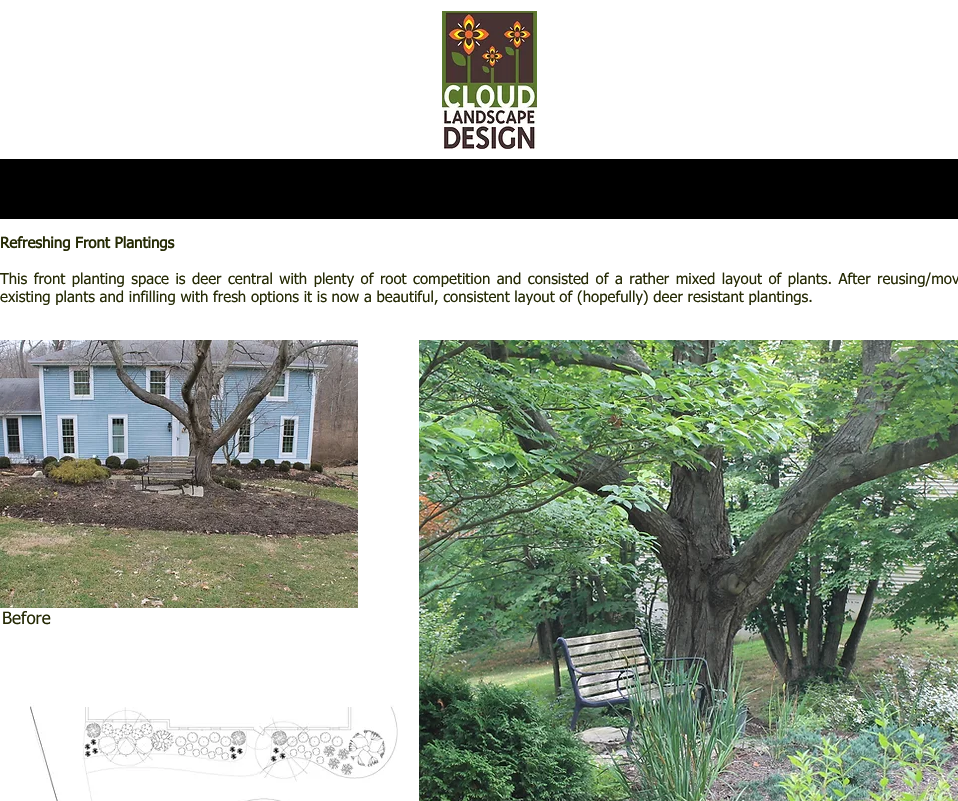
void draw(SkCanvas* canvas) {
	SkPaint paint;
	paint.setAntiAlias(true);
	auto spacedText = [&](const char* s, float x, float y, const SkFont& font, const SkPaint& ink, float letter, float word) {
		std::vector<SkGlyphID> glyphs(font.countText(s, strlen(s), SkTextEncoding::kUTF8));
		std::vector<float> xs(glyphs.size());
		font.textToGlyphs(s, strlen(s), SkTextEncoding::kUTF8, glyphs);
		font.getXPos(glyphs, xs, x);
		float extra = 0;
		for (size_t i = 0; i < glyphs.size(); i++) {
			xs[i] += extra;
			extra += letter + word * (glyphs[i] == font.unicharToGlyph(' '));
		}
		canvas->drawTextBlob(SkTextBlob::MakeFromPosHGlyphs(glyphs, xs, y, font), 0, 0, ink);
	};
	canvas->clear(0xffffffff);
	canvas->drawImageRect(SkImages::DeferredFromEncodedData(SkData::MakeFromFileName("img1.png")), SkRect::MakeXYWH(442, 11, 95, 138), SkSamplingOptions());
	paint.setColor(0xff000000);
	canvas->drawRect(SkRect::MakeXYWH(0, 159, 958, 60), paint);
	SkFont f1(fontMgr->matchFamilyStyle("tahoma", SkFontStyle::Bold()), 15);
	f1.setSubpixel(true);
	paint.setColor(0xff252a04);
	canvas->drawString("Refreshing Front Plantings", 0, 248, f1, paint);
	SkFont f2(fontMgr->matchFamilyStyle("tahoma", SkFontStyle::Normal()), 15);
	f2.setSubpixel(true);
	spacedText("This front planting space is deer central with plenty of root competition and consisted of a rather mixed layout of plants. After reusing/mov", 0, 284, f2, paint, 0, 1.75);
	canvas->drawString("existing plants and infilling with fresh options it is now a beautiful, consistent layout of (hopefully) deer resistant plantings.", 0, 302, f2, paint);
	canvas->drawImageRect(SkImages::DeferredFromEncodedData(SkData::MakeFromFileName("img2.png")), SkRect::MakeXYWH(0, 340, 358, 268), SkSamplingOptions());
	canvas->drawImageRect(SkImages::DeferredFromEncodedData(SkData::MakeFromFileName("img3.png")), SkRect::MakeXYWH(419, 340, 539, 461), SkSamplingOptions());
	SkFont f3(fontMgr->matchFamilyStyle("tahoma", SkFontStyle::Normal()), 17);
	f3.setSubpixel(true);
	canvas->drawString("Before", 2, 624, f3, paint);
	canvas->drawImageRect(SkImages::DeferredFromEncodedData(SkData::MakeFromFileName("img4.png")), SkRect::MakeXYWH(30, 703, 368, 98), SkSamplingOptions());
}
